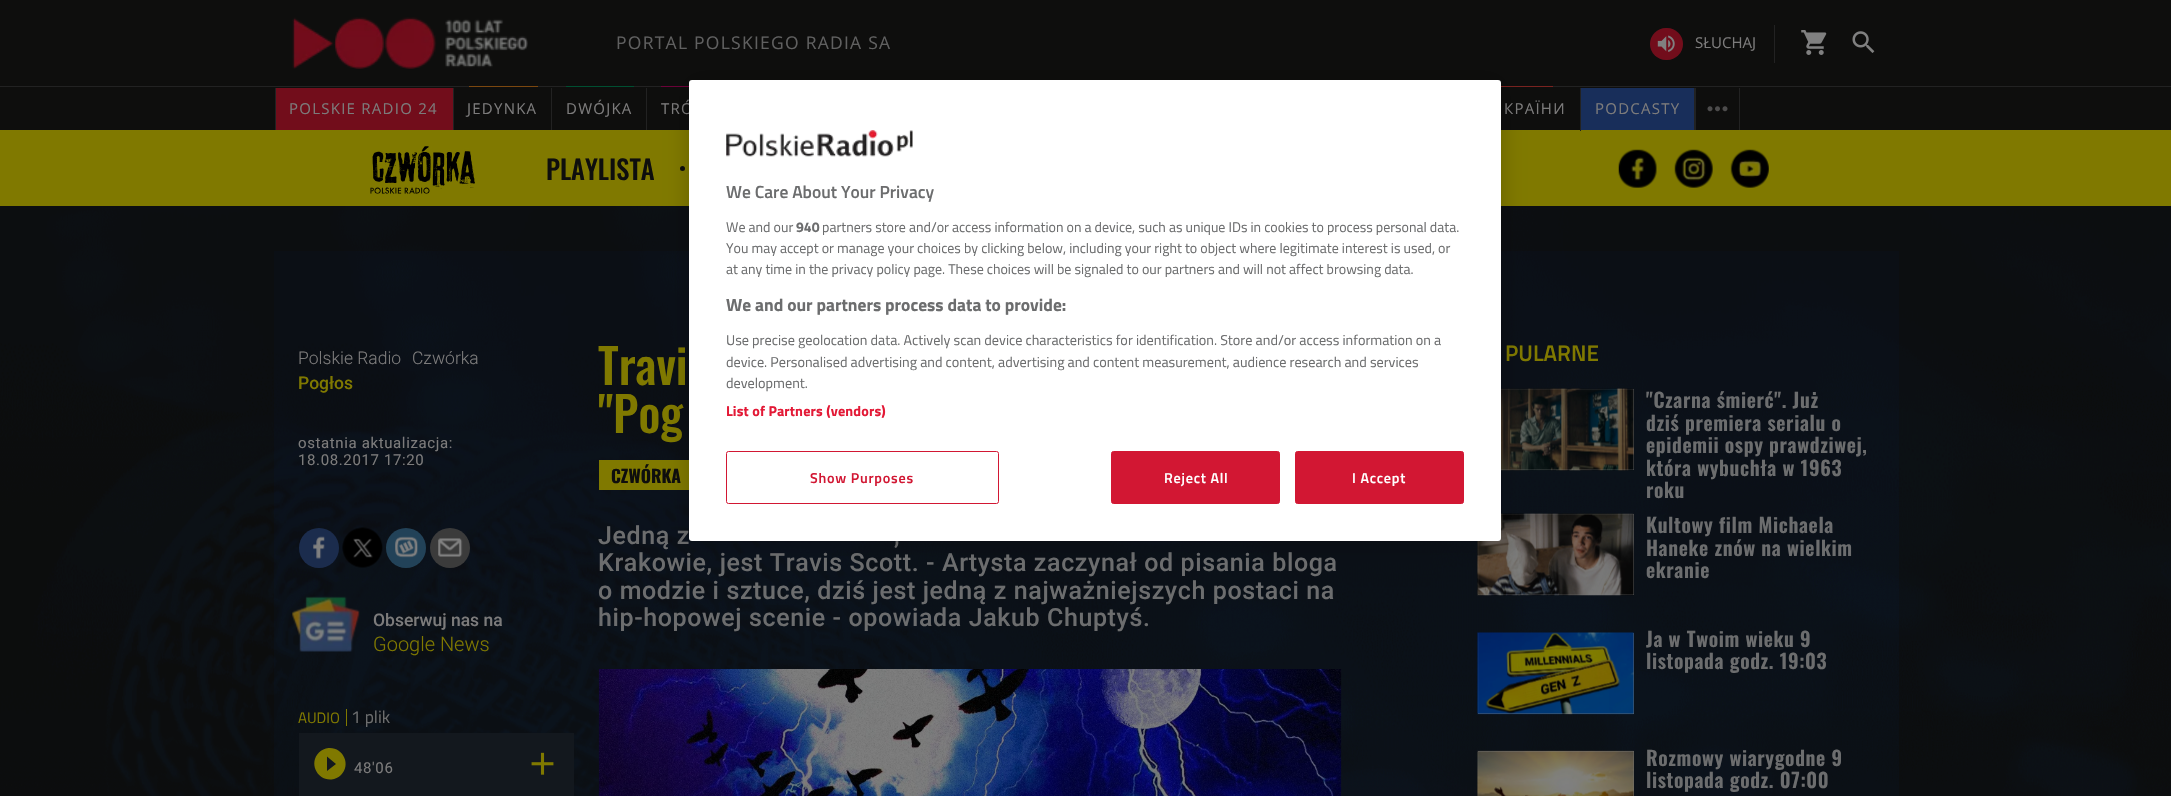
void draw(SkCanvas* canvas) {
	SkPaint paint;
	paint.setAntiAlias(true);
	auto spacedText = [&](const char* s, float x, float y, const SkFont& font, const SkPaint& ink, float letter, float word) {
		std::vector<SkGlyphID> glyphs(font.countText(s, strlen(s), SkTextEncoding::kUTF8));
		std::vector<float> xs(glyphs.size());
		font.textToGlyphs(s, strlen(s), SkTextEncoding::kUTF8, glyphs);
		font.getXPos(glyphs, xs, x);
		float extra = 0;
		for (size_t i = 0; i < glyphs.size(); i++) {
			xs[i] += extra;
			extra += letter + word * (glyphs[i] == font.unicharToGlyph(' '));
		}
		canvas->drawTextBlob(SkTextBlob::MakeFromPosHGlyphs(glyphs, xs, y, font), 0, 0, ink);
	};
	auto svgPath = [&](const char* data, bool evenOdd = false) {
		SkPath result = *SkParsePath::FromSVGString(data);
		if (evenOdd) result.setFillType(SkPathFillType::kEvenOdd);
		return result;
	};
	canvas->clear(0xff0e0e0d);
	paint.setColor(0xff222222);
	canvas->drawRect(SkRect::MakeXYWH(0, 86, 2171, 1), paint);
	canvas->drawImageRect(SkImages::DeferredFromEncodedData(SkData::MakeFromFileName("img1.png")), SkRect::MakeXYWH(292, 17, 236, 52), SkSamplingOptions());
	SkFont f1(fontMgr->matchFamilyStyle("Open Sans", SkFontStyle::Normal()), 17.5);
	f1.setSubpixel(true);
	paint.setColor(0xff606060);
	spacedText("PORTAL POLSKIEGO RADIA SA", 616, 49, f1, paint, 1.25, 0);
	paint.setColor(0xff720d1b);
	canvas->drawRoundRect(SkRect::MakeXYWH(1650, 28, 33, 32), 16, 16, paint);
	canvas->drawImageRect(SkImages::DeferredFromEncodedData(SkData::MakeFromFileName("img2.png")), SkRect::MakeXYWH(1657, 35, 18, 17), SkSamplingOptions());
	SkFont f2(fontMgr->matchFamilyStyle("Open Sans", SkFontStyle::Normal()), 15);
	f2.setSubpixel(true);
	paint.setColor(0xff7c7b7b);
	canvas->drawString("SŁUCHAJ", 1695, 48, f2, paint);
	paint.setColor(0xff222222);
	canvas->drawRect(SkRect::MakeXYWH(1774, 25, 1, 38), paint);
	canvas->drawImageRect(SkImages::DeferredFromEncodedData(SkData::MakeFromFileName("img3.png")), SkRect::MakeXYWH(1801, 30, 26, 25), SkSamplingOptions());
	canvas->drawImageRect(SkImages::DeferredFromEncodedData(SkData::MakeFromFileName("img4.png")), SkRect::MakeXYWH(1852, 31, 23, 22), SkSamplingOptions());
	canvas->drawRect(SkRect::MakeXYWH(275, 88, 1, 42), paint);
	paint.setColor(0xff720d1b);
	canvas->drawRect(SkRect::MakeXYWH(276, 88, 177, 42), paint);
	paint.setColor(0xff222222);
	canvas->drawRect(SkRect::MakeXYWH(453, 88, 1, 42), paint);
	paint.setColor(0xff7c7b7b);
	spacedText("POLSKIE RADIO 24", 289, 114, f2, paint, 1.25, 0);
	paint.setColor(0xff222222);
	canvas->drawRect(SkRect::MakeXYWH(551, 88, 1, 42), paint);
	paint.setColor(0xff7b470f);
	canvas->drawRect(SkRect::MakeXYWH(469, 86, 69, 1), paint);
	paint.setColor(0xff7c7b7b);
	spacedText("JEDYNKA", 467, 114, f2, paint, 1.25, 0);
	paint.setColor(0xff222222);
	canvas->drawRect(SkRect::MakeXYWH(646, 88, 1, 42), paint);
	paint.setColor(0xff004f31);
	canvas->drawRect(SkRect::MakeXYWH(566, 86, 68, 1), paint);
	paint.setColor(0xff7c7b7b);
	spacedText("DWÓJKA", 566, 114, f2, paint, 1.25, 0);
	paint.setColor(0xff6c0239);
	canvas->drawRect(SkRect::MakeXYWH(661, 86, 28, 1), paint);
	paint.setColor(0xff7c7b7b);
	spacedText("TRÓ", 661, 114, f2, paint, 1.25, 0);
	paint.setColor(0xff807900);
	canvas->drawRect(SkRect::MakeXYWH(0, 130, 2171, 76), paint);
	paint.setColor(0xff222222);
	canvas->drawRect(SkRect::MakeXYWH(1580, 88, 1, 43), paint);
	paint.setColor(0xff7a2320);
	canvas->drawRect(SkRect::MakeXYWH(1501, 86, 52, 1), paint);
	paint.setColor(0xff7c7b7b);
	spacedText("КРАЇНИ", 1504, 114, f2, paint, 1.25, 0);
	paint.setColor(0xff182e5a);
	canvas->drawRect(SkRect::MakeXYWH(1581, 88, 113, 42), paint);
	paint.setColor(0xff222222);
	canvas->drawRect(SkRect::MakeXYWH(1694, 88, 2, 42), paint);
	paint.setColor(0xff7c7b7b);
	spacedText("PODCASTY", 1595, 114, f2, paint, 1.25, 0);
	paint.setColor(0xff222222);
	canvas->drawRect(SkRect::MakeXYWH(1739, 88, 1, 42), paint);
	canvas->drawImageRect(SkImages::DeferredFromEncodedData(SkData::MakeFromFileName("img5.png")), SkRect::MakeXYWH(1707, 106, 21, 6), SkSamplingOptions());
	canvas->drawImageRect(SkImages::DeferredFromEncodedData(SkData::MakeFromFileName("img6.png")), SkRect::MakeXYWH(370, 146, 105, 48), SkSamplingOptions());
	SkFont f3(fontMgr->matchFamilyStyle("Oswald", SkFontStyle(500, SkFontStyle::kNormal_Width, SkFontStyle::kUpright_Slant)), 26.5);
	f3.setSubpixel(true);
	paint.setColor(0xff0e0e0d);
	canvas->drawString("PLAYLISTA", 546, 180, f3, paint);
	canvas->drawCircle(682.5, 168.5, 2.5, paint);
	canvas->drawImageRect(SkImages::DeferredFromEncodedData(SkData::MakeFromFileName("img7.png")), SkRect::MakeXYWH(1618, 149, 39, 39), SkSamplingOptions());
	canvas->drawImageRect(SkImages::DeferredFromEncodedData(SkData::MakeFromFileName("img8.png")), SkRect::MakeXYWH(1674, 149, 39, 39), SkSamplingOptions());
	canvas->drawImageRect(SkImages::DeferredFromEncodedData(SkData::MakeFromFileName("img9.png")), SkRect::MakeXYWH(1730, 149, 39, 39), SkSamplingOptions());
	paint.setColor(0xff0d1014);
	canvas->drawRect(SkRect::MakeXYWH(274, 251, 1625, 545), paint);
	canvas->drawImageRect(SkImages::DeferredFromEncodedData(SkData::MakeFromFileName("img10.png")), SkRect::MakeXYWH(0, 206, 2171, 590), SkSamplingOptions());
	SkFont f4(fontMgr->matchFamilyStyle("Oswald", SkFontStyle(500, SkFontStyle::kNormal_Width, SkFontStyle::kUpright_Slant)), 48);
	f4.setSubpixel(true);
	paint.setColor(0xff807900);
	canvas->drawString("Travi", 598, 385, f4, paint);
	canvas->drawString("\"Pog", 598, 433, f4, paint);
	SkFont f5(fontMgr->matchFamilyStyle("Roboto", SkFontStyle::Normal()), 15);
	f5.setSubpixel(true);
	paint.setColor(0xff7c7b7b);
	spacedText("ostatnia aktualizacja:", 298, 448, f5, paint, 0.62, 0);
	spacedText("18.08.2017 17:20", 298, 465, f5, paint, 0.62, 0);
	paint.setColor(0xff807900);
	canvas->drawRect(SkRect::MakeXYWH(599, 460, 90, 30), paint);
	SkFont f6(fontMgr->matchFamilyStyle("Oswald", SkFontStyle::Bold()), 17.5);
	f6.setSubpixel(true);
	paint.setColor(0xff0e0e0d);
	canvas->drawString("CZWÓRKA", 611, 483, f6, paint);
	paint.setColor(0xff1b2c4d);
	canvas->drawCircle(319, 548, 20, paint);
	canvas->drawImageRect(SkImages::DeferredFromEncodedData(SkData::MakeFromFileName("img11.png")), SkRect::MakeXYWH(313, 536, 12, 23), SkSamplingOptions());
	canvas->drawImageRect(SkImages::DeferredFromEncodedData(SkData::MakeFromFileName("img12.png")), SkRect::MakeXYWH(342, 527, 41, 41), SkSamplingOptions());
	paint.setColor(0xff224258);
	canvas->drawCircle(406, 548, 20, paint);
	canvas->drawImageRect(SkImages::DeferredFromEncodedData(SkData::MakeFromFileName("img13.png")), SkRect::MakeXYWH(395, 536, 23, 22), SkSamplingOptions());
	paint.setColor(0xff3b3b3b);
	canvas->drawCircle(450, 548, 20, paint);
	canvas->drawImageRect(SkImages::DeferredFromEncodedData(SkData::MakeFromFileName("img14.png")), SkRect::MakeXYWH(438, 538, 25, 19), SkSamplingOptions());
	canvas->drawImageRect(SkImages::DeferredFromEncodedData(SkData::MakeFromFileName("img15.png")), SkRect::MakeXYWH(292, 596, 68, 56), SkSamplingOptions());
	SkFont f7(fontMgr->matchFamilyStyle("Roboto", SkFontStyle(500, SkFontStyle::kNormal_Width, SkFontStyle::kUpright_Slant)), 17.5);
	f7.setSubpixel(true);
	paint.setColor(0xff7c7b7b);
	canvas->drawString("Obserwuj nas na", 373, 626, f7, paint);
	SkFont f8(fontMgr->matchFamilyStyle("Roboto", SkFontStyle(300, SkFontStyle::kNormal_Width, SkFontStyle::kUpright_Slant)), 20);
	f8.setSubpixel(true);
	paint.setColor(0xff807900);
	canvas->drawString("Google News", 373, 651, f8, paint);
	SkFont f9(fontMgr->matchFamilyStyle("Roboto", SkFontStyle(500, SkFontStyle::kNormal_Width, SkFontStyle::kUpright_Slant)), 25);
	f9.setSubpixel(true);
	paint.setColor(0xff6c6d6e);
	spacedText("Jedną z", 598, 544, f9, paint, 0.62, 0);
	spacedText(",", 894, 544, f9, paint, 0.62, 0);
	spacedText("Krakowie, jest Travis Scott. - Artysta zaczynał od pisania bloga", 598, 571, f9, paint, 0.62, 0);
	spacedText("o modzie i sztuce, dziś jest jedną z najważniejszych postaci na", 598, 599, f9, paint, 0.62, 0);
	spacedText("hip-hopowej scenie - opowiada Jakub Chuptyś.", 598, 626, f9, paint, 0.62, 0);
	paint.setColor(0xff807900);
	canvas->drawRect(SkRect::MakeXYWH(346, 709, 1, 17), paint);
	SkFont f10(fontMgr->matchFamilyStyle("Titillium Web", SkFontStyle::Normal()), 15);
	f10.setSubpixel(true);
	canvas->drawString("AUDIO", 298, 723, f10, paint);
	SkFont f11(fontMgr->matchFamilyStyle("Titillium Web", SkFontStyle::Normal()), 17.5);
	f11.setSubpixel(true);
	paint.setColor(0xff6c6d6e);
	canvas->drawString("1 plik", 351, 723, f11, paint);
	paint.setColor(0xff13181e);
	canvas->drawRect(SkRect::MakeXYWH(299, 733, 275, 63), paint);
	paint.setColor(0xff807900);
	canvas->drawPath(svgPath("M327 771L336 764L327 756.5ZM319 752.5C321.5 750 325 748.5 328.5 748C343 747 351.5 764.5 341 775C338.5 777.5 335 779 331.5 779.5C317 780.5 308.5 763 319 752.5Z"), paint);
	paint.setColor(0xff7c7b7b);
	spacedText("48'06", 354, 773, f5, paint, 0.62, 0);
	canvas->drawImageRect(SkImages::DeferredFromEncodedData(SkData::MakeFromFileName("img16.png")), SkRect::MakeXYWH(531, 752, 23, 23), SkSamplingOptions());
	canvas->drawImageRect(SkImages::DeferredFromEncodedData(SkData::MakeFromFileName("img17.png")), SkRect::MakeXYWH(598, 669, 744, 127), SkSamplingOptions());
	SkFont f12(fontMgr->matchFamilyStyle("Roboto", SkFontStyle(300, SkFontStyle::kNormal_Width, SkFontStyle::kUpright_Slant)), 17.5);
	f12.setSubpixel(true);
	canvas->drawString("Polskie Radio", 298, 364, f12, paint);
	canvas->drawString("Czwórka", 412, 364, f12, paint);
	paint.setColor(0xff807900);
	canvas->drawString("Pogłos", 298, 389, f7, paint);
	SkFont f13(fontMgr->matchFamilyStyle("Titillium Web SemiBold", SkFontStyle(600, SkFontStyle::kNormal_Width, SkFontStyle::kUpright_Slant)), 22.5);
	f13.setSubpixel(true);
	canvas->drawString("PULARNE", 1505, 361, f13, paint);
	paint.setColor(0xff737373);
	canvas->drawRect(SkRect::MakeXYWH(1501, 389, 133, 81), paint);
	canvas->drawImageRect(SkImages::DeferredFromEncodedData(SkData::MakeFromFileName("img18.png")), SkRect::MakeXYWH(1501, 388, 133, 83), SkSamplingOptions());
	SkFont f14(fontMgr->matchFamilyStyle("Oswald", SkFontStyle(600, SkFontStyle::kNormal_Width, SkFontStyle::kUpright_Slant)), 20);
	f14.setSubpixel(true);
	paint.setColor(0xff6c6d6e);
	spacedText("\"Czarna śmierć\". Już", 1646, 408, f14, paint, 0.62, 0);
	spacedText("dziś premiera serialu o", 1646, 431, f14, paint, 0.62, 0);
	spacedText("epidemii ospy prawdziwej,", 1646, 453, f14, paint, 0.62, 0);
	spacedText("która wybuchła w 1963", 1646, 476, f14, paint, 0.62, 0);
	spacedText("roku", 1646, 498, f14, paint, 0.62, 0);
	paint.setColor(0xff737373);
	canvas->drawRect(SkRect::MakeXYWH(1478, 514, 156, 81), paint);
	canvas->drawImageRect(SkImages::DeferredFromEncodedData(SkData::MakeFromFileName("img19.png")), SkRect::MakeXYWH(1477, 513, 157, 83), SkSamplingOptions());
	paint.setColor(0xff6c6d6e);
	spacedText("Kultowy film Michaela", 1646, 533, f14, paint, 0.62, 0);
	spacedText("Haneke znów na wielkim", 1646, 556, f14, paint, 0.62, 0);
	spacedText("ekranie", 1646, 578, f14, paint, 0.62, 0);
	paint.setColor(0xff737373);
	canvas->drawRect(SkRect::MakeXYWH(1478, 633, 156, 81), paint);
	canvas->drawImageRect(SkImages::DeferredFromEncodedData(SkData::MakeFromFileName("img20.png")), SkRect::MakeXYWH(1477, 632, 157, 83), SkSamplingOptions());
	paint.setColor(0xff6c6d6e);
	spacedText("Ja w Twoim wieku 9", 1646, 647, f14, paint, 0.62, 0);
	spacedText("listopada godz. 19:03", 1646, 669, f14, paint, 0.62, 0);
	paint.setColor(0xff737373);
	canvas->drawRect(SkRect::MakeXYWH(1478, 751, 156, 45), paint);
	canvas->drawImageRect(SkImages::DeferredFromEncodedData(SkData::MakeFromFileName("img21.png")), SkRect::MakeXYWH(1477, 750, 157, 46), SkSamplingOptions());
	paint.setColor(0xff6c6d6e);
	spacedText("Rozmowy wiarygodne 9", 1646, 766, f14, paint, 0.62, 0);
	spacedText("listopada godz. 07:00", 1646, 788, f14, paint, 0.62, 0);
	paint.setColor(0x33000000);
	paint.setMaskFilter(SkMaskFilter::MakeBlur(kNormal_SkBlurStyle, 11));
	canvas->drawRoundRect(SkRect::MakeXYWH(689, 80, 812, 461), 3, 3, paint);
	paint.setMaskFilter(nullptr);
	paint.setColor(0xffffffff);
	canvas->drawRoundRect(SkRect::MakeXYWH(689, 80, 812, 461), 3, 3, paint);
	canvas->drawImageRect(SkImages::DeferredFromEncodedData(SkData::MakeFromFileName("img22.png")), SkRect::MakeXYWH(726, 130, 187, 27), SkSamplingOptions());
	SkFont f15(fontMgr->matchFamilyStyle("Titillium Web SemiBold", SkFontStyle(600, SkFontStyle::kNormal_Width, SkFontStyle::kUpright_Slant)), 17.5);
	f15.setSubpixel(true);
	paint.setColor(0xff6c6d6e);
	canvas->drawString("We Care About Your Privacy", 726, 198, f15, paint);
	SkFont f16(fontMgr->matchFamilyStyle("Titillium Web", SkFontStyle::Normal()), 14);
	f16.setSubpixel(true);
	canvas->drawString("We and our", 726, 232, f16, paint);
	SkFont f17(fontMgr->matchFamilyStyle("Titillium Web", SkFontStyle::Bold()), 14);
	f17.setSubpixel(true);
	canvas->drawString("940", 796, 232, f17, paint);
	canvas->drawString("partners store and/or access information on a device, such as unique IDs in cookies to process personal data.", 822, 232, f16, paint);
	canvas->drawString("You may accept or manage your choices by clicking below, including your right to object where legitimate interest is used, or", 726, 253, f16, paint);
	canvas->drawString("at any time in the privacy policy page. These choices will be signaled to our partners and will not affect browsing data.", 726, 274, f16, paint);
	SkFont f18(fontMgr->matchFamilyStyle("Titillium Web", SkFontStyle::Bold()), 17.5);
	f18.setSubpixel(true);
	canvas->drawString("We and our partners process data to provide:", 726, 311, f18, paint);
	SkFont f19(fontMgr->matchFamilyStyle("Titillium Web", SkFontStyle::Normal()), 14.23);
	f19.setSubpixel(true);
	canvas->drawString("Use precise geolocation data. Actively scan device characteristics for identification. Store and/or access information on a", 726, 345, f19, paint);
	canvas->drawString("device. Personalised advertising and content, advertising and content measurement, audience research and services", 726, 367, f19, paint);
	canvas->drawString("development.", 726, 388, f19, paint);
	SkFont f20(fontMgr->matchFamilyStyle("Titillium Web", SkFontStyle::Bold()), 14.23);
	f20.setSubpixel(true);
	paint.setColor(0xffe31936);
	spacedText("List of Partners (vendors)", 726, 416, f20, paint, 0.15, 0);
	paint.setStroke(true);
	paint.setStrokeWidth(1);
	paint.setColor(0xffd21733);
	canvas->drawRoundRect(SkRect::MakeXYWH(726.5, 451.5, 272, 52), 2, 2, paint);
	SkFont f21(fontMgr->matchFamilyStyle("Titillium Web SemiBold", SkFontStyle(600, SkFontStyle::kNormal_Width, SkFontStyle::kUpright_Slant)), 14.23);
	f21.setSubpixel(true);
	paint.setStroke(false);
	spacedText("Show Purposes", 810, 483, f21, paint, 0.75, 0);
	canvas->drawRoundRect(SkRect::MakeXYWH(1111.5, 451.5, 168, 52), 2, 2, paint);
	paint.setStroke(true);
	canvas->drawRoundRect(SkRect::MakeXYWH(1111.5, 451.5, 168, 52), 2, 2, paint);
	paint.setStroke(false);
	paint.setColor(0xffffffff);
	spacedText("Reject All", 1164, 483, f21, paint, 0.75, 0);
	paint.setColor(0xffd21733);
	canvas->drawRoundRect(SkRect::MakeXYWH(1295.5, 451.5, 168, 52), 2, 2, paint);
	paint.setStroke(true);
	canvas->drawRoundRect(SkRect::MakeXYWH(1295.5, 451.5, 168, 52), 2, 2, paint);
	paint.setStroke(false);
	paint.setColor(0xffffffff);
	spacedText("I Accept", 1352, 483, f21, paint, 0.75, 0);
}
